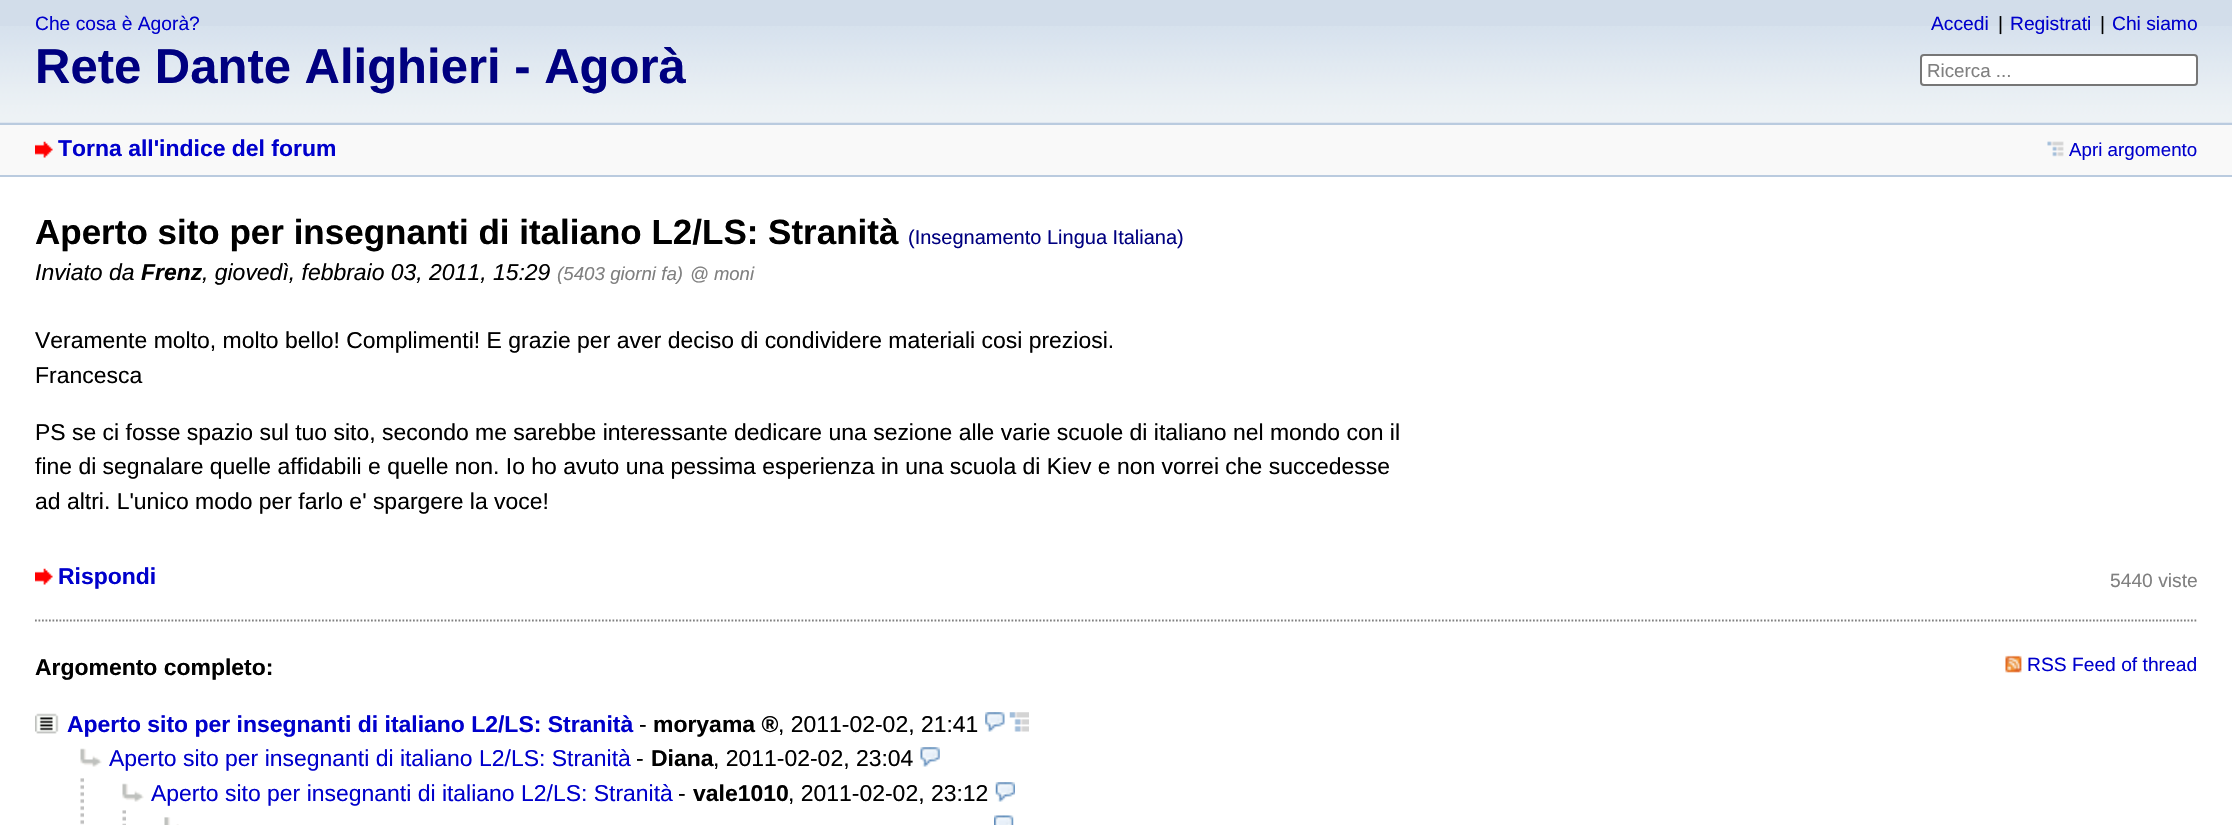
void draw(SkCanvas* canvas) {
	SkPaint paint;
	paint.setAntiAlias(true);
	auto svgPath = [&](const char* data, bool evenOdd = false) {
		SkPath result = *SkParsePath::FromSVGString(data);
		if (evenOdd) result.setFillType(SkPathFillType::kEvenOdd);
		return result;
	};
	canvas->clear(0xfff9f9f9);
	paint.setColor(0xffd2ddea);
	canvas->drawRect(SkRect::MakeXYWH(0, 0, 2232, 123), paint);
	canvas->drawImageRect(SkImages::DeferredFromEncodedData(SkData::MakeFromFileName("img1.png")), SkRect::MakeXYWH(0, 26, 2232, 97), SkSamplingOptions());
	SkFont f1(fontMgr->matchFamilyStyle("Liberation Sans", SkFontStyle::Normal()), 19.25);
	f1.setSubpixel(true);
	paint.setColor(0xff0000cc);
	canvas->drawString("Che cosa è Agorà?", 35, 30, f1, paint);
	SkFont f2(fontMgr->matchFamilyStyle("Liberation Sans", SkFontStyle::Bold()), 49);
	f2.setSubpixel(true);
	paint.setColor(0xff000080);
	canvas->drawString("Rete Dante Alighieri - Agorà", 35, 83, f2, paint);
	paint.setColor(0xff0000cc);
	canvas->drawString("Accedi", 1931, 30, f1, paint);
	paint.setColor(0xff000000);
	canvas->drawString("|", 1998, 30, f1, paint);
	paint.setColor(0xff0000cc);
	canvas->drawString("Registrati", 2010, 30, f1, paint);
	paint.setColor(0xff000000);
	canvas->drawString("|", 2100, 30, f1, paint);
	paint.setColor(0xff0000cc);
	canvas->drawString("Chi siamo", 2112, 30, f1, paint);
	paint.setColor(0xffffffff);
	canvas->drawRoundRect(SkRect::MakeXYWH(1921, 55, 276, 30), 3, 3, paint);
	paint.setStroke(true);
	paint.setStrokeWidth(2);
	paint.setColor(0xff767676);
	canvas->drawRoundRect(SkRect::MakeXYWH(1921, 55, 276, 30), 3, 3, paint);
	SkFont f3(fontMgr->matchFamilyStyle("Liberation Sans", SkFontStyle::Normal()), 18.75);
	f3.setSubpixel(true);
	paint.setStroke(false);
	paint.setColor(0xff808080);
	canvas->drawString("Ricerca ...", 1927, 77, f3, paint);
	paint.setColor(0xffbacbdf);
	canvas->drawRect(SkRect::MakeXYWH(0, 123, 2232, 2), paint);
	canvas->drawRect(SkRect::MakeXYWH(0, 175, 2232, 2), paint);
	canvas->drawImageRect(SkImages::DeferredFromEncodedData(SkData::MakeFromFileName("img2.png")), SkRect::MakeXYWH(35, 141, 18, 17), SkSamplingOptions());
	SkFont f4(fontMgr->matchFamilyStyle("Liberation Sans", SkFontStyle::Bold()), 22.95);
	f4.setSubpixel(true);
	paint.setColor(0xff0000cc);
	canvas->drawString("Torna all'indice del forum", 58, 156, f4, paint);
	canvas->drawImageRect(SkImages::DeferredFromEncodedData(SkData::MakeFromFileName("img3.png")), SkRect::MakeXYWH(2047, 141, 17, 16), SkSamplingOptions());
	canvas->drawString("Apri argomento", 2069, 156, f3, paint);
	paint.setColor(0xffffffff);
	canvas->drawRect(SkRect::MakeXYWH(0, 177, 2232, 648), paint);
	SkFont f5(fontMgr->matchFamilyStyle("Liberation Sans", SkFontStyle::Bold()), 35);
	f5.setSubpixel(true);
	paint.setColor(0xff000000);
	canvas->drawString("Aperto sito per insegnanti di italiano L2/LS: Stranità", 35, 244, f5, paint);
	SkFont f6(fontMgr->matchFamilyStyle("Liberation Sans", SkFontStyle::Normal()), 20);
	f6.setSubpixel(true);
	paint.setColor(0xff000080);
	canvas->drawString("(Insegnamento Lingua Italiana)", 908, 244, f6, paint);
	SkFont f7(fontMgr->matchFamilyStyle("Liberation Sans", SkFontStyle::Italic()), 22.95);
	f7.setSubpixel(true);
	paint.setColor(0xff000000);
	canvas->drawString("Inviato da", 35, 280, f7, paint);
	SkFont f8(fontMgr->matchFamilyStyle("Liberation Sans", SkFontStyle::BoldItalic()), 22.95);
	f8.setSubpixel(true);
	canvas->drawString("Frenz", 141, 280, f8, paint);
	canvas->drawString(", giovedì, febbraio 03, 2011, 15:29", 202, 280, f7, paint);
	SkFont f9(fontMgr->matchFamilyStyle("Liberation Sans", SkFontStyle::Italic()), 18.75);
	f9.setSubpixel(true);
	paint.setColor(0xff808080);
	canvas->drawString("(5403 giorni fa)", 557, 280, f9, paint);
	SkFont f10(fontMgr->matchFamilyStyle("Liberation Sans", SkFontStyle::Italic()), 18.5);
	f10.setSubpixel(true);
	canvas->drawString("@ moni", 690, 280, f10, paint);
	SkFont f11(fontMgr->matchFamilyStyle("Liberation Sans", SkFontStyle::Normal()), 22.95);
	f11.setSubpixel(true);
	paint.setColor(0xff000000);
	canvas->drawString("Veramente molto, molto bello! Complimenti! E grazie per aver deciso di condividere materiali cosi preziosi.", 35, 348, f11, paint);
	canvas->drawString("Francesca", 35, 383, f11, paint);
	canvas->drawString("PS se ci fosse spazio sul tuo sito, secondo me sarebbe interessante dedicare una sezione alle varie scuole di italiano nel mondo con il", 35, 440, f11, paint);
	canvas->drawString("fine di segnalare quelle affidabili e quelle non. Io ho avuto una pessima esperienza in una scuola di Kiev e non vorrei che succedesse", 35, 474, f11, paint);
	canvas->drawString("ad altri. L'unico modo per farlo e' spargere la voce!", 35, 509, f11, paint);
	canvas->drawImageRect(SkImages::DeferredFromEncodedData(SkData::MakeFromFileName("img4.png")), SkRect::MakeXYWH(35, 568, 18, 17), SkSamplingOptions());
	paint.setColor(0xff0000cc);
	canvas->drawString("Rispondi", 58, 584, f4, paint);
	paint.setColor(0xff808080);
	canvas->drawString("5440 viste", 2110, 587, f1, paint);
	paint.setStroke(true);
	paint.setStrokeWidth(1.8);
	paint.setPathEffect(SkDashPathEffect::Make({{1.75f, 1.75f}}, 0));
	canvas->drawPath(svgPath("M35 620.5H2198"), paint);
	paint.setPathEffect(nullptr);
	paint.setStroke(false);
	paint.setColor(0xff000000);
	canvas->drawString("Argomento completo:", 35, 675, f4, paint);
	canvas->drawImageRect(SkImages::DeferredFromEncodedData(SkData::MakeFromFileName("img5.png")), SkRect::MakeXYWH(2005, 655, 17, 18), SkSamplingOptions());
	paint.setColor(0xff0000cc);
	canvas->drawString("RSS Feed of thread", 2027, 671, f1, paint);
	canvas->drawImageRect(SkImages::DeferredFromEncodedData(SkData::MakeFromFileName("img6.png")), SkRect::MakeXYWH(35, 713, 24, 21), SkSamplingOptions());
	canvas->drawString("Aperto sito per insegnanti di italiano L2/LS: Stranità", 67, 732, f4, paint);
	paint.setColor(0xff000000);
	canvas->drawString("-", 639, 732, f11, paint);
	canvas->drawString("moryama ®", 653, 732, f4, paint);
	canvas->drawString(", 2011-02-02, 21:41", 778, 732, f11, paint);
	canvas->drawImageRect(SkImages::DeferredFromEncodedData(SkData::MakeFromFileName("img7.png")), SkRect::MakeXYWH(985, 712, 20, 20), SkSamplingOptions());
	canvas->drawImageRect(SkImages::DeferredFromEncodedData(SkData::MakeFromFileName("img8.png")), SkRect::MakeXYWH(1009, 712, 20, 20), SkSamplingOptions());
	canvas->drawImageRect(SkImages::DeferredFromEncodedData(SkData::MakeFromFileName("img9.png")), SkRect::MakeXYWH(80, 748, 22, 19), SkSamplingOptions());
	paint.setColor(0xff0000cc);
	canvas->drawString("Aperto sito per insegnanti di italiano L2/LS: Stranità", 109, 766, f11, paint);
	paint.setColor(0xff000000);
	canvas->drawString("-", 636, 766, f11, paint);
	canvas->drawString("Diana", 651, 766, f4, paint);
	canvas->drawString(", 2011-02-02, 23:04", 713, 766, f11, paint);
	canvas->drawImageRect(SkImages::DeferredFromEncodedData(SkData::MakeFromFileName("img10.png")), SkRect::MakeXYWH(920, 747, 20, 20), SkSamplingOptions());
	canvas->drawImageRect(SkImages::DeferredFromEncodedData(SkData::MakeFromFileName("img11.png")), SkRect::MakeXYWH(80, 778, 4, 47), SkSamplingOptions());
	canvas->drawImageRect(SkImages::DeferredFromEncodedData(SkData::MakeFromFileName("img12.png")), SkRect::MakeXYWH(122, 783, 22, 19), SkSamplingOptions());
	paint.setColor(0xff0000cc);
	canvas->drawString("Aperto sito per insegnanti di italiano L2/LS: Stranità", 151, 801, f11, paint);
	paint.setColor(0xff000000);
	canvas->drawString("-", 678, 801, f11, paint);
	canvas->drawString("vale1010", 693, 801, f4, paint);
	canvas->drawString(", 2011-02-02, 23:12", 788, 801, f11, paint);
	canvas->drawImageRect(SkImages::DeferredFromEncodedData(SkData::MakeFromFileName("img13.png")), SkRect::MakeXYWH(995, 782, 20, 20), SkSamplingOptions());
	canvas->drawImageRect(SkImages::DeferredFromEncodedData(SkData::MakeFromFileName("img14.png")), SkRect::MakeXYWH(122, 810, 4, 15), SkSamplingOptions());
	canvas->drawImageRect(SkImages::DeferredFromEncodedData(SkData::MakeFromFileName("img15.png")), SkRect::MakeXYWH(164, 817, 15, 8), SkSamplingOptions());
	canvas->drawImageRect(SkImages::DeferredFromEncodedData(SkData::MakeFromFileName("img16.png")), SkRect::MakeXYWH(994, 815, 20, 10), SkSamplingOptions());
}
